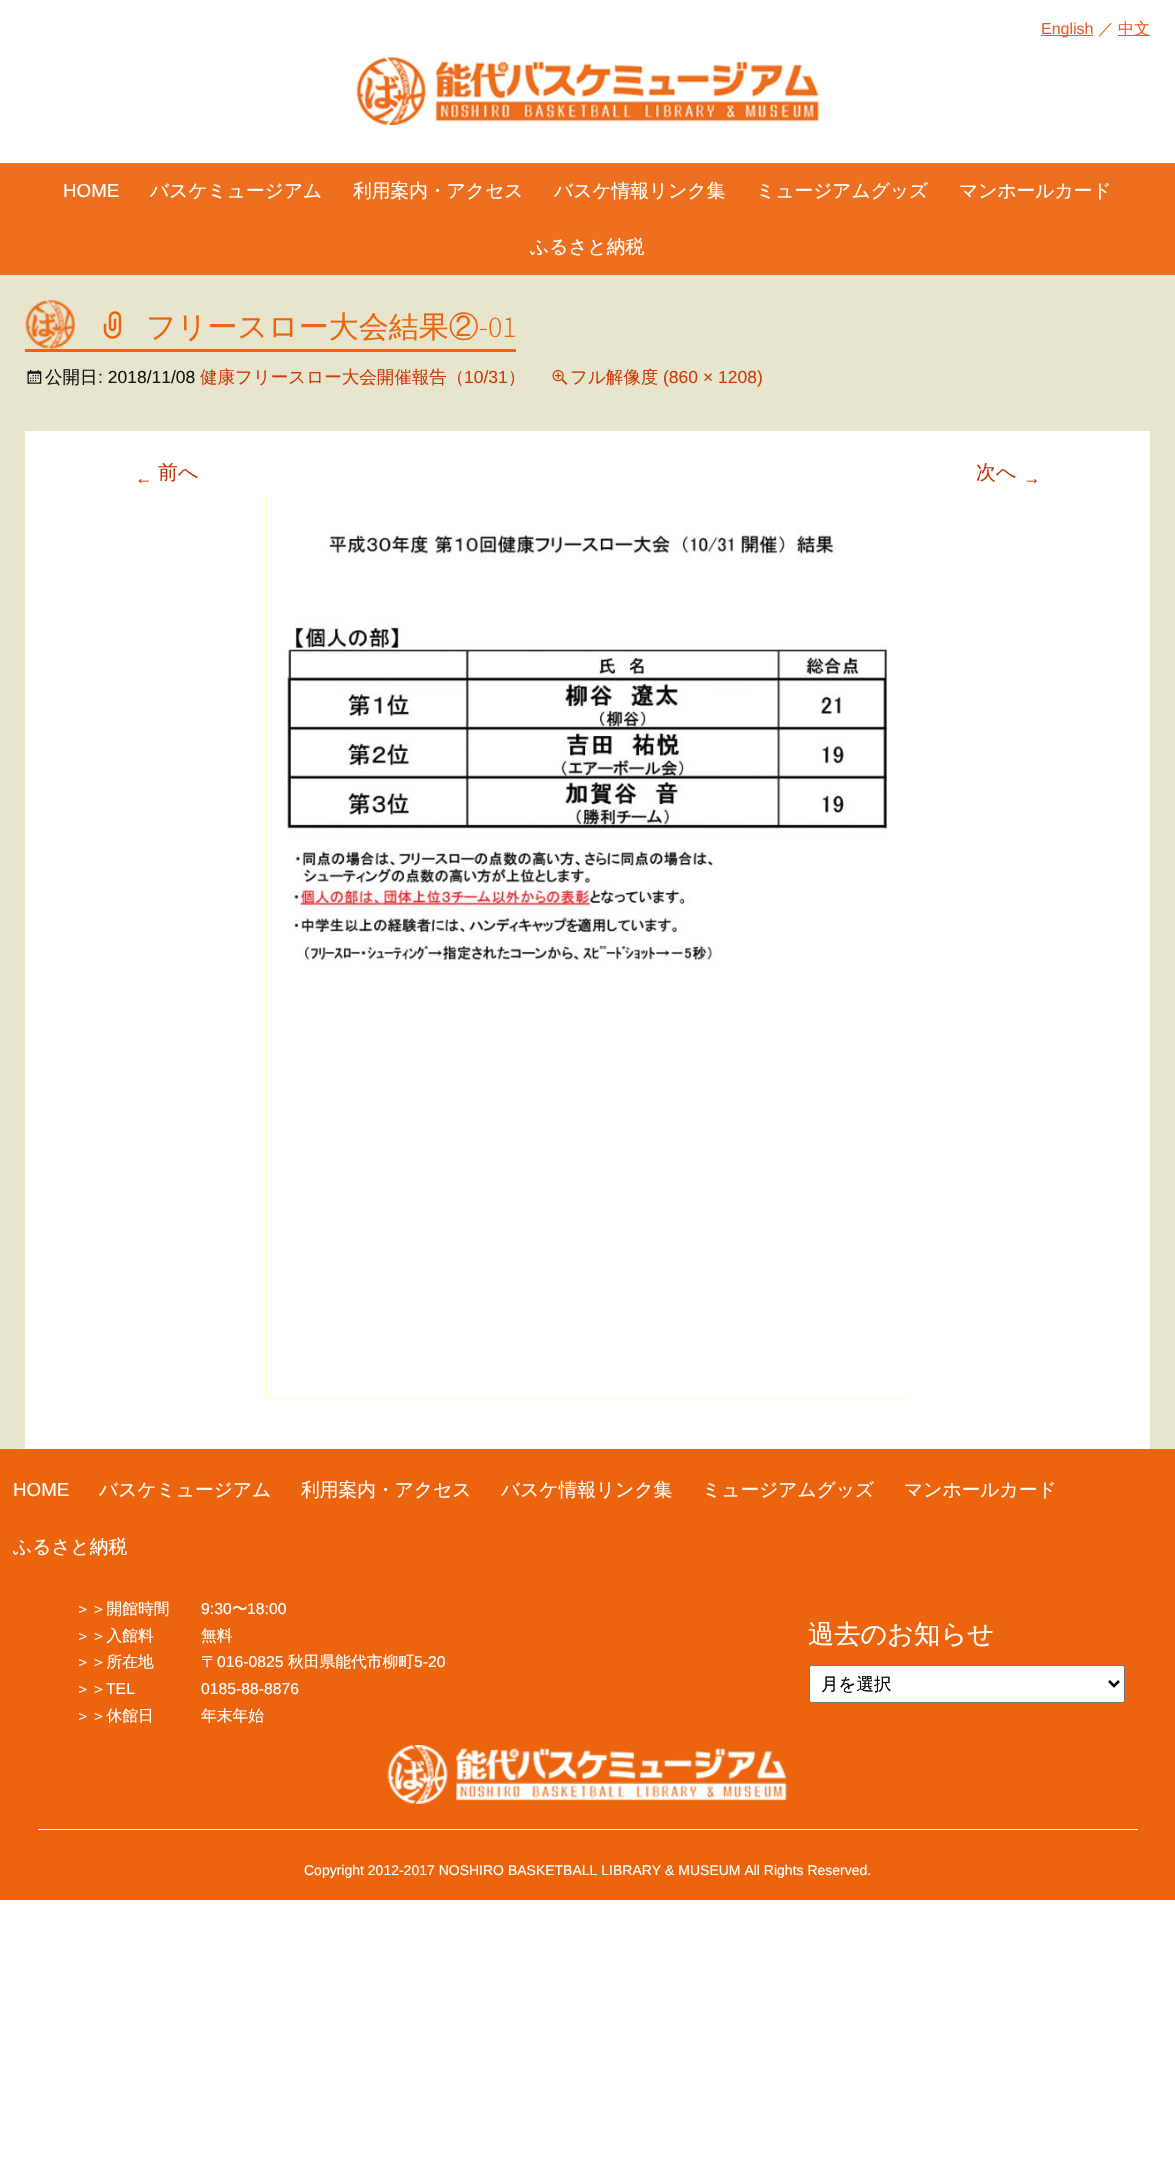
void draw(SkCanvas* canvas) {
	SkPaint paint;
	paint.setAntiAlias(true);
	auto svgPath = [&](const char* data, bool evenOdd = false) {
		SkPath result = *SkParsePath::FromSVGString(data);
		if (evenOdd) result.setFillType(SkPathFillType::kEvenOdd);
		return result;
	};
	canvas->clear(0xffffffff);
	paint.setColor(0xfff15a24);
	canvas->drawRect(SkRect::MakeXYWH(1041, 35, 52, 1), paint);
	SkFont f1(fontMgr->matchFamilyStyle("Liberation Sans", SkFontStyle::Normal()), 16);
	f1.setSubpixel(true);
	canvas->drawString("English", 1041, 34, f1, paint);
	SkFont f2(fontMgr->matchFamilyStyle("WenQuanYi Zen Hei", SkFontStyle(500, SkFontStyle::kNormal_Width, SkFontStyle::kUpright_Slant)), 16);
	f2.setSubpixel(true);
	paint.setColor(0xffec640e);
	canvas->drawString("／", 1098, 34, f2, paint);
	paint.setColor(0xfff15a24);
	canvas->drawRect(SkRect::MakeXYWH(1118, 35, 32, 1), paint);
	canvas->drawString("中文", 1118, 34, f2, paint);
	canvas->drawImageRect(SkImages::DeferredFromEncodedData(SkData::MakeFromFileName("img1.png")), SkRect::MakeXYWH(356, 57, 463, 68), SkSamplingOptions());
	paint.setColor(0xffed6f1f);
	canvas->drawRect(SkRect::MakeXYWH(0, 163, 1175, 112), paint);
	SkFont f3(fontMgr->matchFamilyStyle("Liberation Sans", SkFontStyle::Normal()), 18.75);
	f3.setSubpixel(true);
	paint.setColor(0xffffffff);
	canvas->drawString("HOME", 63, 197, f3, paint);
	SkFont f4(fontMgr->matchFamilyStyle("WenQuanYi Zen Hei", SkFontStyle(500, SkFontStyle::kNormal_Width, SkFontStyle::kUpright_Slant)), 18.75);
	f4.setSubpixel(true);
	canvas->drawString("バスケミュージアム", 150, 197, f4, paint);
	canvas->drawString("利用案内・アクセス", 353, 197, f4, paint);
	canvas->drawString("バスケ情報リンク集", 554, 197, f4, paint);
	canvas->drawString("ミュージアムグッズ", 756, 197, f4, paint);
	canvas->drawString("マンホールカード", 959, 197, f4, paint);
	canvas->drawString("ふるさと納税", 530, 253, f4, paint);
	paint.setColor(0xffe8e5ce);
	canvas->drawRect(SkRect::MakeXYWH(0, 275, 1175, 1174), paint);
	canvas->drawImageRect(SkImages::DeferredFromEncodedData(SkData::MakeFromFileName("img2.png")), SkRect::MakeXYWH(25, 300, 50, 49), SkSamplingOptions());
	paint.setColor(0xffec640e);
	canvas->drawRect(SkRect::MakeXYWH(25, 349, 491, 3), paint);
	canvas->drawImageRect(SkImages::DeferredFromEncodedData(SkData::MakeFromFileName("img3.png")), SkRect::MakeXYWH(103, 311, 19, 28), SkSamplingOptions());
	SkFont f5(fontMgr->matchFamilyStyle("WenQuanYi Zen Hei", SkFontStyle(500, SkFontStyle::kNormal_Width, SkFontStyle::kUpright_Slant)), 30);
	f5.setSubpixel(true);
	canvas->drawString("フリースロー大会結果②", 146, 337, f5, paint);
	SkFont f6(fontMgr->matchFamilyStyle("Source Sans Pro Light", SkFontStyle(300, SkFontStyle::kNormal_Width, SkFontStyle::kUpright_Slant)), 30);
	f6.setSubpixel(true);
	canvas->drawString("-01", 479, 337, f6, paint);
	canvas->drawImageRect(SkImages::DeferredFromEncodedData(SkData::MakeFromFileName("img4.png")), SkRect::MakeXYWH(27, 370, 15, 14), SkSamplingOptions());
	SkFont f7(fontMgr->matchFamilyStyle("WenQuanYi Zen Hei", SkFontStyle(500, SkFontStyle::kNormal_Width, SkFontStyle::kUpright_Slant)), 17.5);
	f7.setSubpixel(true);
	paint.setColor(0xff141412);
	canvas->drawString("公開日", 45, 383, f7, paint);
	SkFont f8(fontMgr->matchFamilyStyle("Liberation Sans", SkFontStyle::Normal()), 17.5);
	f8.setSubpixel(true);
	canvas->drawString(": 2018/11/08", 98, 383, f8, paint);
	paint.setColor(0xffca3c08);
	canvas->drawString("健康フリースロー大会開催報告（", 200, 383, f7, paint);
	canvas->drawString("10/31", 464, 383, f8, paint);
	canvas->drawString("）", 508, 383, f7, paint);
	canvas->drawImageRect(SkImages::DeferredFromEncodedData(SkData::MakeFromFileName("img5.png")), SkRect::MakeXYWH(552, 370, 16, 15), SkSamplingOptions());
	canvas->drawString("フル解像度", 570, 383, f7, paint);
	canvas->drawString("(860 × 1208)", 663, 383, f8, paint);
	paint.setColor(0xffffffff);
	canvas->drawRect(SkRect::MakeXYWH(25, 431, 1125, 1018), paint);
	paint.setColor(0xffbc360a);
	canvas->drawString("←", 135, 484, f8, paint);
	SkFont f9(fontMgr->matchFamilyStyle("WenQuanYi Zen Hei", SkFontStyle(500, SkFontStyle::kNormal_Width, SkFontStyle::kUpright_Slant)), 20);
	f9.setSubpixel(true);
	canvas->drawString("前へ", 158, 479, f9, paint);
	canvas->drawString("次へ", 976, 479, f9, paint);
	canvas->drawString("→", 1023, 484, f8, paint);
	paint.setColor(0xffffff00);
	canvas->drawRect(SkRect::MakeXYWH(266, 495, 644, 904), paint);
	canvas->drawImageRect(SkImages::DeferredFromEncodedData(SkData::MakeFromFileName("img6.png")), SkRect::MakeXYWH(266, 495, 644, 904), SkSamplingOptions());
	paint.setColor(0xffec640e);
	canvas->drawRect(SkRect::MakeXYWH(0, 1449, 1175, 451), paint);
	paint.setColor(0xffffffff);
	canvas->drawString("HOME", 13, 1496, f3, paint);
	canvas->drawString("バスケミュージアム", 99, 1496, f4, paint);
	canvas->drawString("利用案内・アクセス", 301, 1496, f4, paint);
	canvas->drawString("バスケ情報リンク集", 501, 1496, f4, paint);
	canvas->drawString("ミュージアムグッズ", 702, 1496, f4, paint);
	canvas->drawString("マンホールカード", 904, 1496, f4, paint);
	canvas->drawString("ふるさと納税", 13, 1553, f4, paint);
	SkFont f10(fontMgr->matchFamilyStyle("WenQuanYi Zen Hei", SkFontStyle(500, SkFontStyle::kNormal_Width, SkFontStyle::kUpright_Slant)), 15.75);
	f10.setSubpixel(true);
	canvas->drawString("＞＞開館時間", 75, 1614, f10, paint);
	SkFont f11(fontMgr->matchFamilyStyle("Liberation Sans", SkFontStyle::Normal()), 15.75);
	f11.setSubpixel(true);
	canvas->drawString("9:30", 201, 1614, f11, paint);
	canvas->drawString("〜", 232, 1614, f10, paint);
	canvas->drawString("18:00", 247, 1614, f11, paint);
	canvas->drawString("＞＞入館料", 75, 1641, f10, paint);
	canvas->drawString("無料", 201, 1641, f10, paint);
	canvas->drawString("＞＞所在地", 75, 1667, f10, paint);
	canvas->drawString("〒", 201, 1667, f10, paint);
	canvas->drawString("016-0825", 217, 1667, f11, paint);
	canvas->drawString("秋田県能代市柳町", 288, 1667, f10, paint);
	canvas->drawString("5-20", 414, 1667, f11, paint);
	canvas->drawString("＞＞", 75, 1694, f10, paint);
	canvas->drawString("TEL", 106, 1694, f11, paint);
	canvas->drawString("0185-88-8876", 201, 1694, f11, paint);
	canvas->drawString("＞＞休館日", 75, 1721, f10, paint);
	canvas->drawString("年末年始", 201, 1721, f10, paint);
	SkFont f12(fontMgr->matchFamilyStyle("WenQuanYi Zen Hei", SkFontStyle(500, SkFontStyle::kNormal_Width, SkFontStyle::kUpright_Slant)), 26.25);
	f12.setSubpixel(true);
	canvas->drawString("過去のお知らせ", 808, 1643, f12, paint);
	canvas->drawRoundRect(SkRect::MakeXYWH(809.5, 1665.5, 315, 37), 2, 2, paint);
	paint.setStroke(true);
	paint.setStrokeWidth(1);
	paint.setColor(0xff767676);
	canvas->drawRoundRect(SkRect::MakeXYWH(809.5, 1665.5, 315, 37), 2, 2, paint);
	paint.setStrokeWidth(2.5);
	paint.setColor(0xff000000);
	canvas->drawPath(svgPath("M1109 1681L1114 1686L1119 1681"), paint);
	paint.setStroke(false);
	canvas->drawString("月を選択", 821, 1690, f7, paint);
	canvas->drawImageRect(SkImages::DeferredFromEncodedData(SkData::MakeFromFileName("img7.png")), SkRect::MakeXYWH(387, 1745, 400, 59), SkSamplingOptions());
	paint.setColor(0xffffffff);
	canvas->drawRect(SkRect::MakeXYWH(38, 1829, 1100, 1), paint);
	SkFont f13(fontMgr->matchFamilyStyle("Liberation Sans", SkFontStyle::Normal()), 14);
	f13.setSubpixel(true);
	canvas->drawString("Copyright 2012-2017 NOSHIRO BASKETBALL LIBRARY & MUSEUM All Rights Reserved.", 304, 1875, f13, paint);
}
